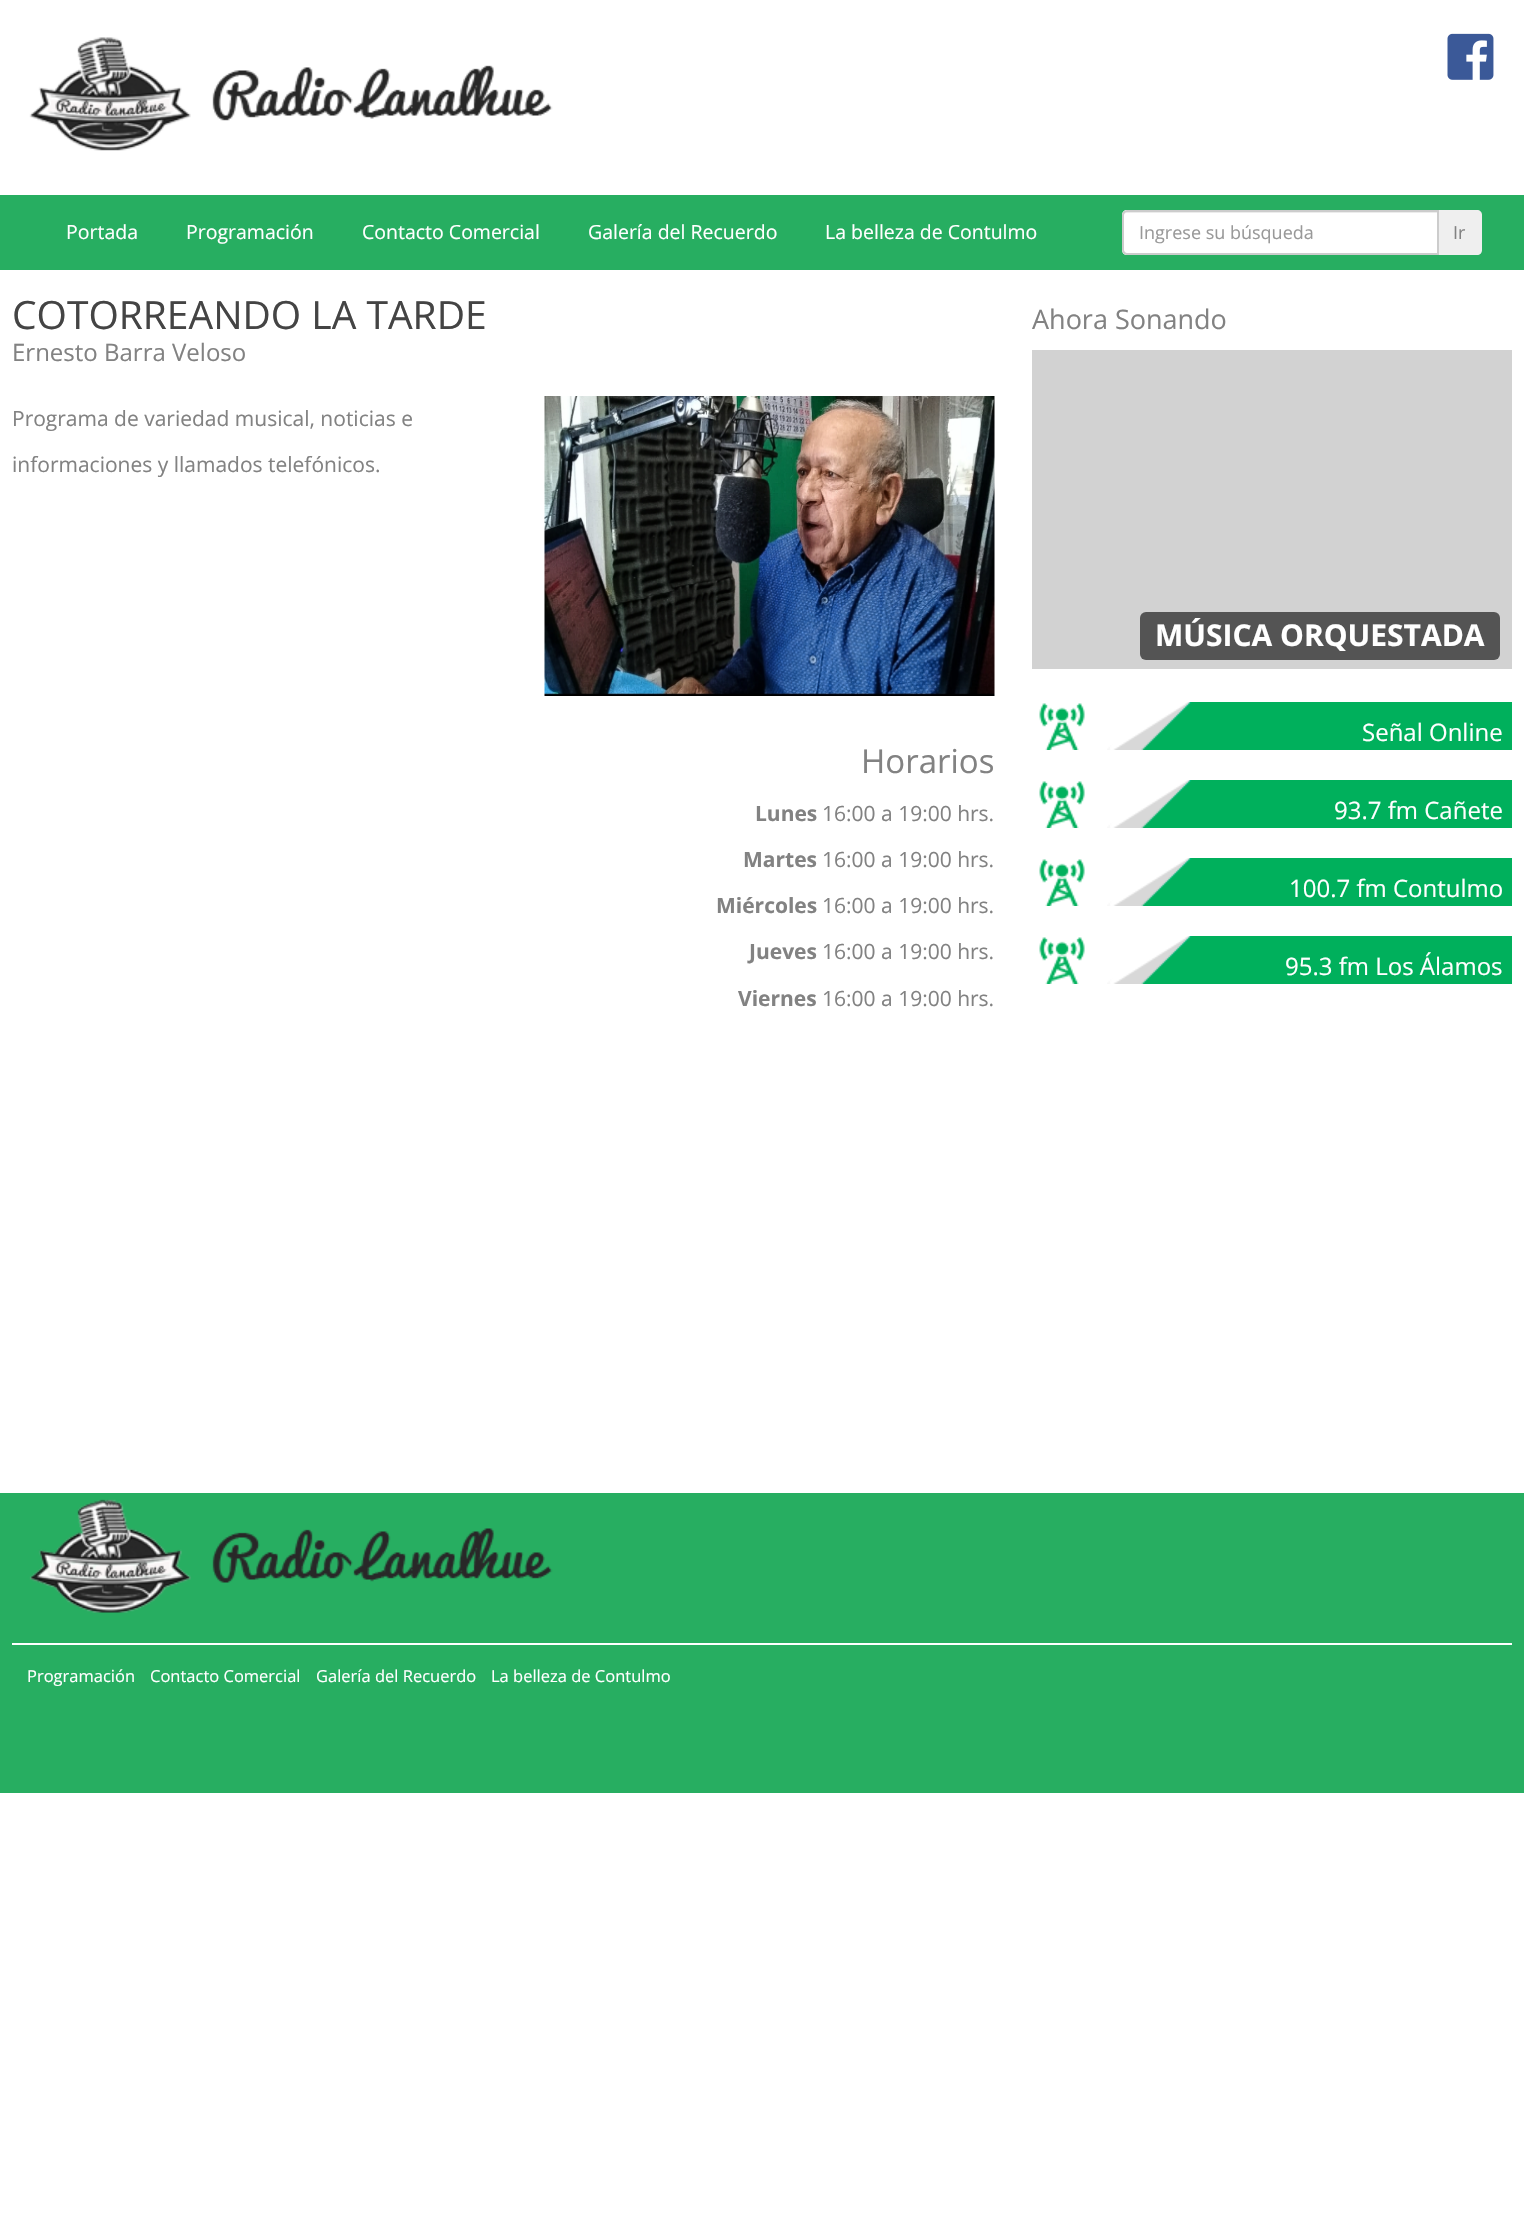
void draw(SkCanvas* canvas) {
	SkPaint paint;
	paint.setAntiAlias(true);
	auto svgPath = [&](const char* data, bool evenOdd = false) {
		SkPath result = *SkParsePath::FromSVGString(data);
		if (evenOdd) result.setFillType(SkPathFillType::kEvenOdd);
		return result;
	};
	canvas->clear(0xffffffff);
	canvas->drawImageRect(SkImages::DeferredFromEncodedData(SkData::MakeFromFileName("img1.png")), SkRect::MakeXYWH(29, 37, 524, 114), SkSamplingOptions());
	canvas->drawImageRect(SkImages::DeferredFromEncodedData(SkData::MakeFromFileName("img2.png")), SkRect::MakeXYWH(1447, 33, 47, 47), SkSamplingOptions());
	paint.setColor(0xff27ae61);
	canvas->drawRect(SkRect::MakeXYWH(0, 195, 1524, 75), paint);
	SkFont f1(fontMgr->matchFamilyStyle("Open Sans", SkFontStyle::Normal()), 19.5);
	f1.setSubpixel(true);
	paint.setColor(0xffffffff);
	canvas->drawString("Portada", 66, 239, f1, paint);
	canvas->drawString("Programación", 186, 239, f1, paint);
	canvas->drawString("Contacto Comercial", 362, 239, f1, paint);
	canvas->drawString("Galería del Recuerdo", 588, 239, f1, paint);
	canvas->drawString("La belleza de Contulmo", 825, 239, f1, paint);
	paint.setColor(0xffefefef);
	canvas->drawPath(svgPath("M1437 210H1477C1480 210 1482 212 1482 215V250C1482 253 1480 255 1477 255H1437Z"), paint);
	paint.setColor(0xffffffff);
	canvas->drawPath(svgPath("M1127 210H1439V255H1127C1124 255 1122 253 1122 250V215C1122 212 1124 210 1127 210Z"), paint);
	paint.setColor(0xffececec);
	canvas->drawPath(svgPath("M1126 213H1437V212H1127C1125 212 1124 214 1124 216C1124 214 1125 213 1126 213Z"), paint);
	paint.setStroke(true);
	paint.setStrokeWidth(2);
	paint.setColor(0xffcccccc);
	canvas->drawPath(svgPath("M1127 211H1438V254H1127C1125 254 1123 252 1123 250V215C1123 213 1125 211 1127 211Z"), paint);
	SkFont f2(fontMgr->matchFamilyStyle("Open Sans", SkFontStyle::Normal()), 18);
	f2.setSubpixel(true);
	paint.setStroke(false);
	paint.setColor(0xff999999);
	canvas->drawString("Ingrese su búsqueda", 1139, 239, f2, paint);
	paint.setColor(0xff828282);
	canvas->drawString("Ir", 1453, 239, f2, paint);
	SkFont f3(fontMgr->matchFamilyStyle("Open Sans", SkFontStyle::Normal()), 39);
	f3.setSubpixel(true);
	paint.setColor(0xff444444);
	canvas->drawString("COTORREANDO LA TARDE", 12, 329, f3, paint);
	SkFont f4(fontMgr->matchFamilyStyle("Open Sans", SkFontStyle::Normal()), 24);
	f4.setSubpixel(true);
	paint.setColor(0xff828282);
	canvas->drawString("Ernesto Barra Veloso", 12, 361, f4, paint);
	SkFont f5(fontMgr->matchFamilyStyle("Open Sans", SkFontStyle::Normal()), 21);
	f5.setSubpixel(true);
	canvas->drawString("Programa de variedad musical, noticias e", 12, 426, f5, paint);
	canvas->drawString("informaciones y llamados telefónicos.", 12, 472, f5, paint);
	canvas->drawImageRect(SkImages::DeferredFromEncodedData(SkData::MakeFromFileName("img3.png")), SkRect::MakeXYWH(544, 396, 451, 300), SkSamplingOptions());
	SkFont f6(fontMgr->matchFamilyStyle("Open Sans", SkFontStyle::Normal()), 33);
	f6.setSubpixel(true);
	canvas->drawString("Horarios", 861, 773, f6, paint);
	SkFont f7(fontMgr->matchFamilyStyle("Open Sans", SkFontStyle::Bold()), 21);
	f7.setSubpixel(true);
	canvas->drawString("Lunes", 755, 821, f7, paint);
	canvas->drawString("16:00 a 19:00 hrs.", 822, 821, f5, paint);
	canvas->drawString("Martes", 743, 867, f7, paint);
	canvas->drawString("16:00 a 19:00 hrs.", 822, 867, f5, paint);
	canvas->drawString("Miércoles", 716, 913, f7, paint);
	canvas->drawString("16:00 a 19:00 hrs.", 822, 913, f5, paint);
	canvas->drawString("Jueves", 749, 959, f7, paint);
	canvas->drawString("16:00 a 19:00 hrs.", 822, 959, f5, paint);
	canvas->drawString("Viernes", 738, 1006, f7, paint);
	canvas->drawString("16:00 a 19:00 hrs.", 822, 1006, f5, paint);
	SkFont f8(fontMgr->matchFamilyStyle("Open Sans", SkFontStyle::Normal()), 27);
	f8.setSubpixel(true);
	canvas->drawString("Ahora Sonando", 1032, 329, f8, paint);
	paint.setColor(0xffd2d2d2);
	canvas->drawRect(SkRect::MakeXYWH(1032, 350, 480, 319), paint);
	paint.setColor(0xff545454);
	canvas->drawRoundRect(SkRect::MakeXYWH(1140, 612, 360, 48), 6, 6, paint);
	SkFont f9(fontMgr->matchFamilyStyle("Open Sans", SkFontStyle::Bold()), 30);
	f9.setSubpixel(true);
	paint.setColor(0xffffffff);
	canvas->drawString("MÚSICA ORQUESTADA", 1155, 646, f9, paint);
	canvas->drawImageRect(SkImages::DeferredFromEncodedData(SkData::MakeFromFileName("img4.png")), SkRect::MakeXYWH(1039, 702, 473, 48), SkSamplingOptions());
	canvas->drawString("Señal Online", 1362, 741, f4, paint);
	canvas->drawImageRect(SkImages::DeferredFromEncodedData(SkData::MakeFromFileName("img4.png")), SkRect::MakeXYWH(1039, 780, 473, 48), SkSamplingOptions());
	canvas->drawString("93.7 fm Cañete", 1334, 819, f4, paint);
	canvas->drawImageRect(SkImages::DeferredFromEncodedData(SkData::MakeFromFileName("img4.png")), SkRect::MakeXYWH(1039, 858, 473, 48), SkSamplingOptions());
	canvas->drawString("100.7 fm Contulmo", 1289, 897, f4, paint);
	canvas->drawImageRect(SkImages::DeferredFromEncodedData(SkData::MakeFromFileName("img4.png")), SkRect::MakeXYWH(1039, 936, 473, 48), SkSamplingOptions());
	canvas->drawString("95.3 fm Los Álamos", 1285, 975, f4, paint);
	paint.setColor(0xff27ae61);
	canvas->drawRect(SkRect::MakeXYWH(0, 1493, 1524, 300), paint);
	canvas->drawImageRect(SkImages::DeferredFromEncodedData(SkData::MakeFromFileName("img5.png")), SkRect::MakeXYWH(29, 1499, 524, 114), SkSamplingOptions());
	paint.setColor(0xffffffff);
	canvas->drawRect(SkRect::MakeXYWH(12, 1643, 1500, 2), paint);
	SkFont f10(fontMgr->matchFamilyStyle("Open Sans", SkFontStyle::Normal()), 16.5);
	f10.setSubpixel(true);
	canvas->drawString("Programación", 27, 1682, f10, paint);
	canvas->drawString("Contacto Comercial", 150, 1682, f10, paint);
	canvas->drawString("Galería del Recuerdo", 316, 1682, f10, paint);
	canvas->drawString("La belleza de Contulmo", 491, 1682, f10, paint);
}
